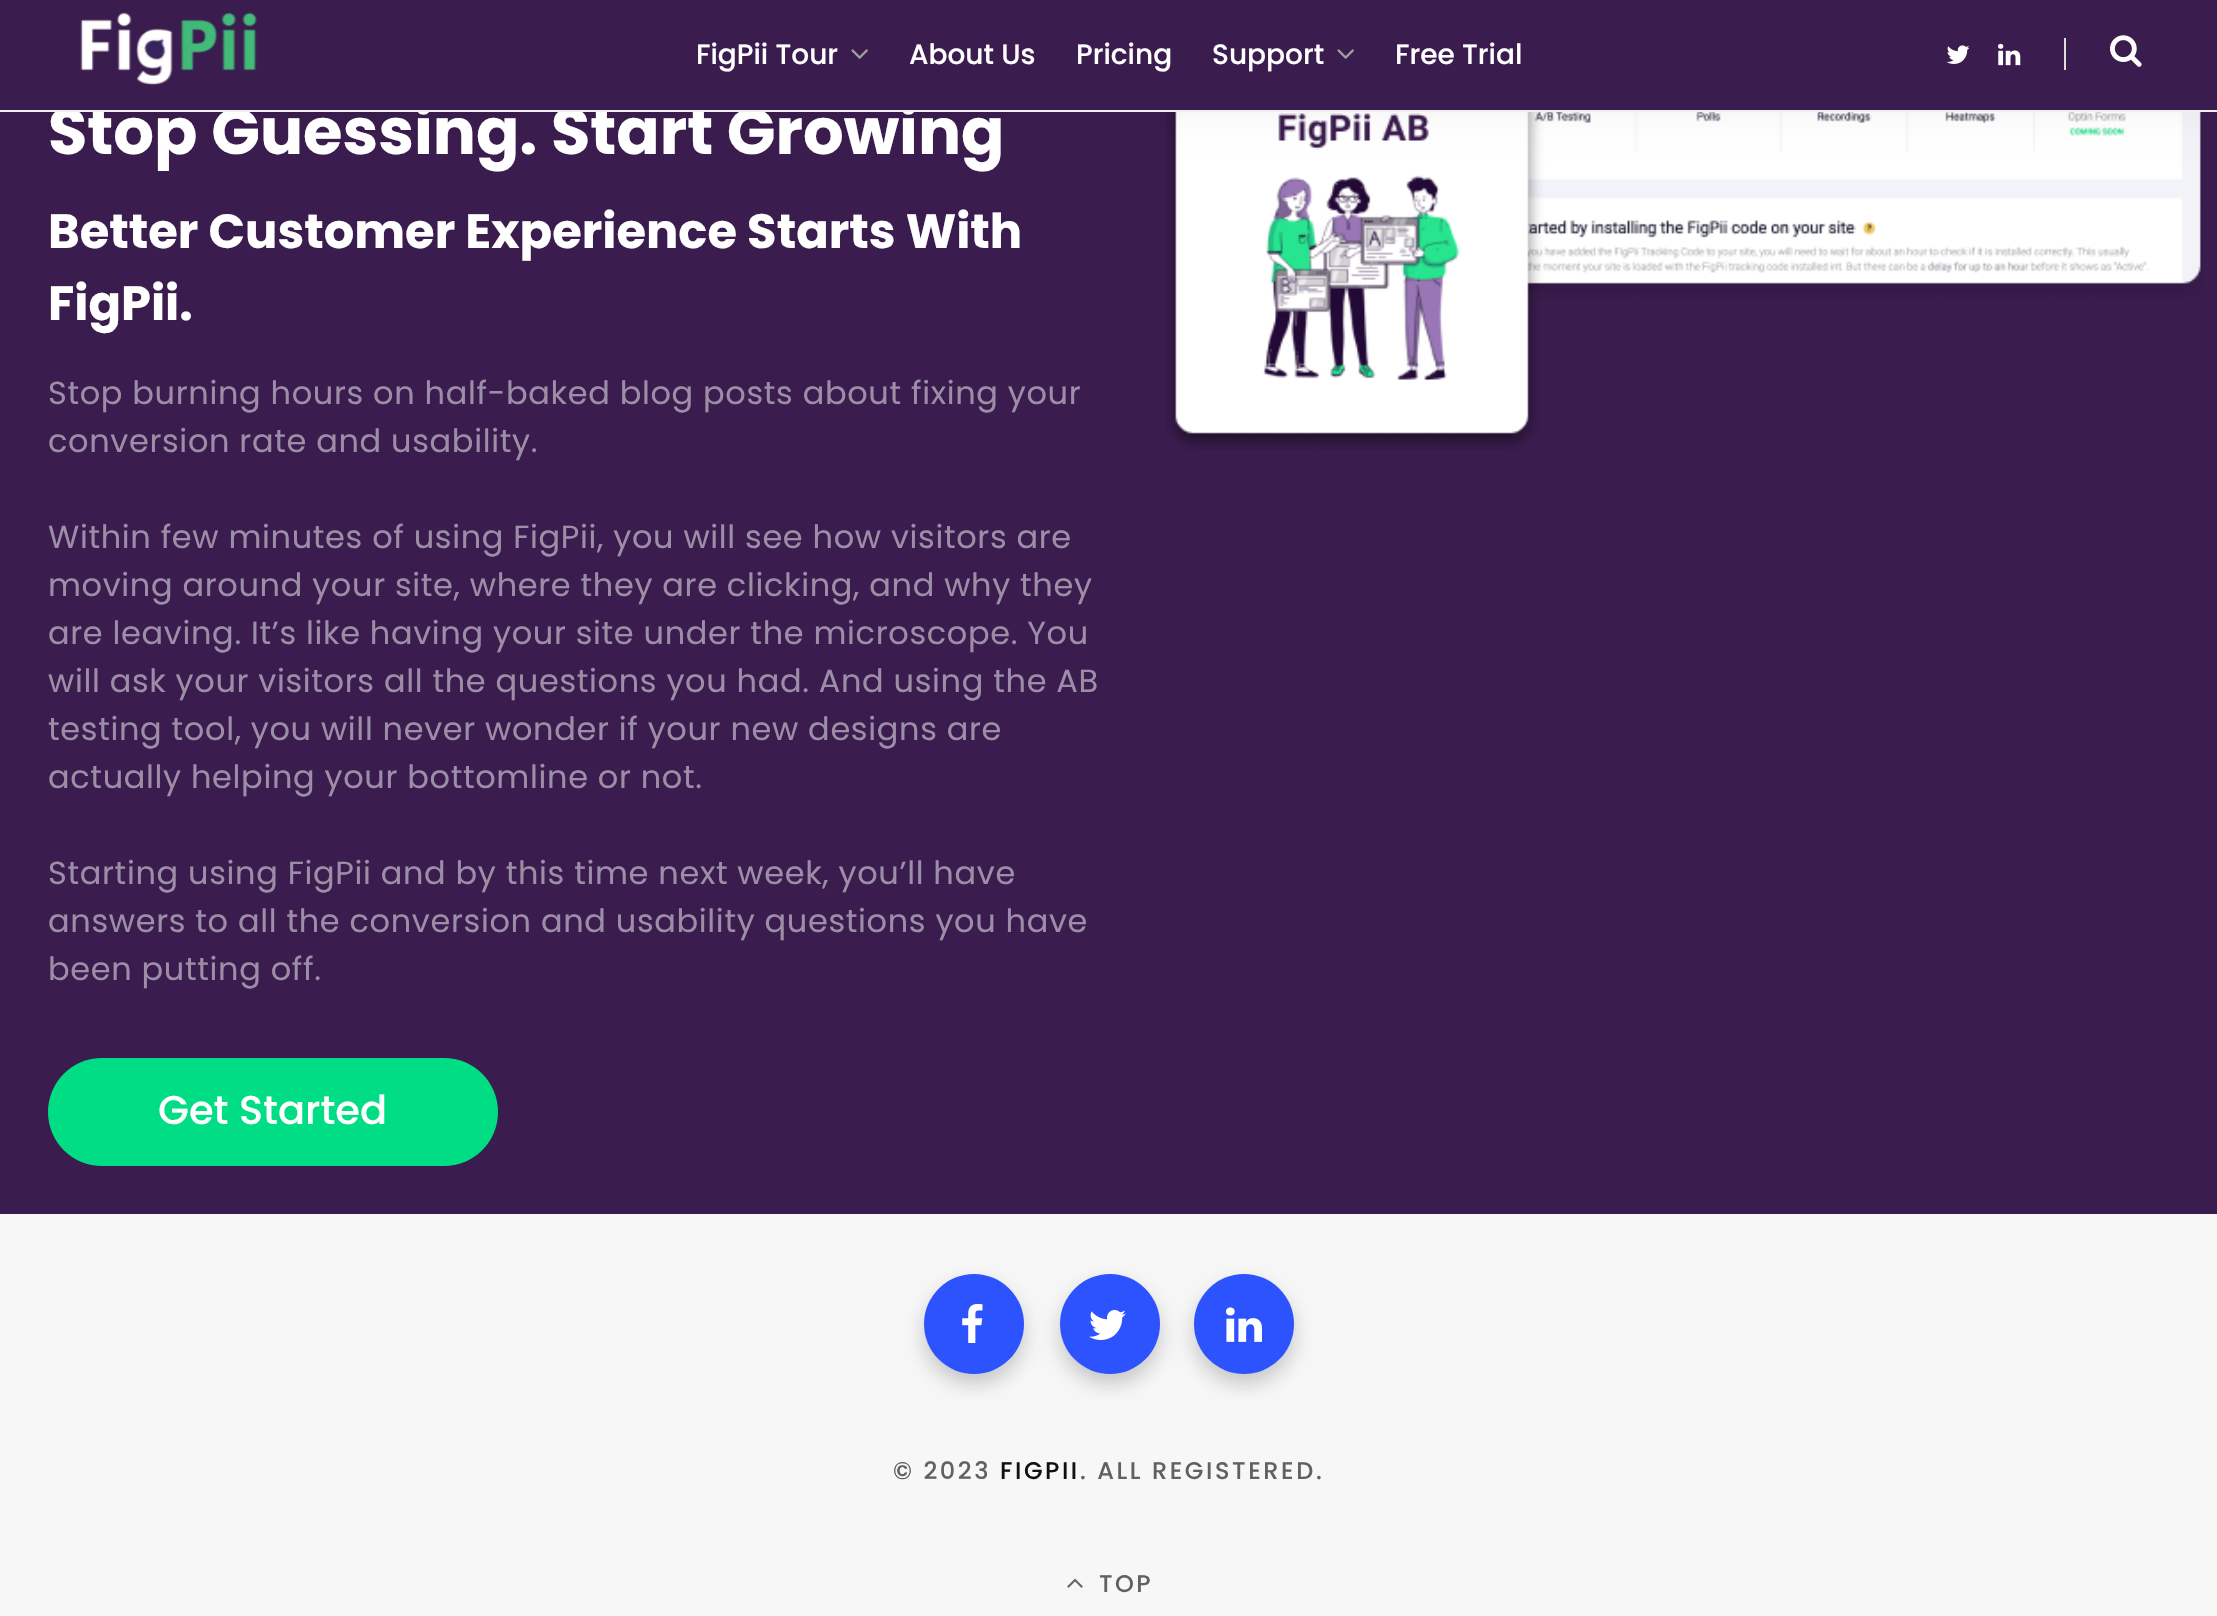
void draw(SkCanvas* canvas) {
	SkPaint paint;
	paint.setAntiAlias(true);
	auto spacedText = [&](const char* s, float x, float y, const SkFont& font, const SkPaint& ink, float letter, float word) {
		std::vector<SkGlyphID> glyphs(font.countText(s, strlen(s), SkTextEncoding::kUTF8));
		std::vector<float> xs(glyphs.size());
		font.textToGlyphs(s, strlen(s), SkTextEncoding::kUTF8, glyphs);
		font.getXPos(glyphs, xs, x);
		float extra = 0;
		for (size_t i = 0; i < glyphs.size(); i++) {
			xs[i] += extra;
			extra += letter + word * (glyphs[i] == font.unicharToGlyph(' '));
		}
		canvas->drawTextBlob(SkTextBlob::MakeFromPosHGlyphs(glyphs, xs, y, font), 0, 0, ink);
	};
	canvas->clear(0xfff7f7f7);
	paint.setColor(0xff3a1c4e);
	canvas->drawRect(SkRect::MakeXYWH(0, 112, 2217, 1102), paint);
	canvas->drawImageRect(SkImages::DeferredFromEncodedData(SkData::MakeFromFileName("img6.png")), SkRect::MakeXYWH(1166, 112, 1037, 338), SkSamplingOptions());
	paint.setColor(0x0d000000);
	paint.setMaskFilter(SkMaskFilter::MakeBlur(kNormal_SkBlurStyle, 20));
	canvas->drawRect(SkRect::MakeXYWH(0, 0, 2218, 112), paint);
	paint.setMaskFilter(nullptr);
	SkFont f1(fontMgr->matchFamilyStyle("Poppins", SkFontStyle::Bold()), 64);
	f1.setSubpixel(true);
	paint.setColor(0xffffffff);
	canvas->drawString("Stop Guessing. Start Growing", 48, 154, f1, paint);
	paint.setColor(0xff3a1c4e);
	canvas->drawRect(SkRect::MakeXYWH(0, 0, 2217, 110), paint);
	paint.setColor(0xffefefef);
	canvas->drawRect(SkRect::MakeXYWH(0, 110, 2217, 2), paint);
	canvas->drawImageRect(SkImages::DeferredFromEncodedData(SkData::MakeFromFileName("img1.png")), SkRect::MakeXYWH(80, 12, 178, 73), SkSamplingOptions());
	SkFont f2(fontMgr->matchFamilyStyle("Poppins", SkFontStyle(500, SkFontStyle::kNormal_Width, SkFontStyle::kUpright_Slant)), 28);
	f2.setSubpixel(true);
	paint.setColor(0xffffffff);
	canvas->drawString("FigPii Tour", 696, 64, f2, paint);
	canvas->drawImageRect(SkImages::DeferredFromEncodedData(SkData::MakeFromFileName("img2.png")), SkRect::MakeXYWH(851, 49, 17, 10), SkSamplingOptions());
	canvas->drawString("About Us", 909, 64, f2, paint);
	canvas->drawString("Pricing", 1076, 64, f2, paint);
	canvas->drawString("Support", 1212, 64, f2, paint);
	canvas->drawImageRect(SkImages::DeferredFromEncodedData(SkData::MakeFromFileName("img2.png")), SkRect::MakeXYWH(1337, 49, 17, 10), SkSamplingOptions());
	canvas->drawString("Free Trial", 1395, 64, f2, paint);
	canvas->drawImageRect(SkImages::DeferredFromEncodedData(SkData::MakeFromFileName("img3.png")), SkRect::MakeXYWH(1946, 45, 24, 19), SkSamplingOptions());
	canvas->drawImageRect(SkImages::DeferredFromEncodedData(SkData::MakeFromFileName("img4.png")), SkRect::MakeXYWH(1998, 43, 23, 23), SkSamplingOptions());
	paint.setColor(0xffdddddd);
	canvas->drawRect(SkRect::MakeXYWH(2064, 38, 2, 32), paint);
	canvas->drawImageRect(SkImages::DeferredFromEncodedData(SkData::MakeFromFileName("img5.png")), SkRect::MakeXYWH(2110, 35, 32, 32), SkSamplingOptions());
	SkFont f3(fontMgr->matchFamilyStyle("Poppins", SkFontStyle::Bold()), 48);
	f3.setSubpixel(true);
	paint.setColor(0xffffffff);
	canvas->drawString("Better Customer Experience Starts With", 48, 248, f3, paint);
	canvas->drawString("FigPii.", 48, 320, f3, paint);
	SkFont f4(fontMgr->matchFamilyStyle("Poppins", SkFontStyle::Normal()), 32);
	f4.setSubpixel(true);
	paint.setColor(0xff9d8ea7);
	spacedText("Stop burning hours on half-baked blog posts about fixing your", 48, 404, f4, paint, 0.65, 0);
	spacedText("conversion rate and usability.", 48, 452, f4, paint, 0.65, 0);
	spacedText("Within few minutes of using FigPii, you will see how visitors are", 48, 548, f4, paint, 0.65, 0);
	spacedText("moving around your site, where they are clicking, and why they", 48, 596, f4, paint, 0.65, 0);
	spacedText("are leaving. It’s like having your site under the microscope. You", 48, 644, f4, paint, 0.65, 0);
	spacedText("will ask your visitors all the questions you had. And using the AB", 48, 692, f4, paint, 0.65, 0);
	spacedText("testing tool, you will never wonder if your new designs are", 48, 740, f4, paint, 0.65, 0);
	spacedText("actually helping your bottomline or not.", 48, 788, f4, paint, 0.65, 0);
	spacedText("Starting using FigPii and by this time next week, you’ll have", 48, 884, f4, paint, 0.65, 0);
	spacedText("answers to all the conversion and usability questions you have", 48, 932, f4, paint, 0.65, 0);
	spacedText("been putting off.", 48, 980, f4, paint, 0.65, 0);
	paint.setColor(0xff00dd84);
	canvas->drawRoundRect(SkRect::MakeXYWH(48, 1058, 450, 108), 54, 54, paint);
	SkFont f5(fontMgr->matchFamilyStyle("Poppins", SkFontStyle(500, SkFontStyle::kNormal_Width, SkFontStyle::kUpright_Slant)), 40);
	f5.setSubpixel(true);
	paint.setColor(0xffffffff);
	canvas->drawString("Get Started", 158, 1124, f5, paint);
	paint.setColor(0x33000000);
	paint.setMaskFilter(SkMaskFilter::MakeBlur(kNormal_SkBlurStyle, 10));
	canvas->drawRoundRect(SkRect::MakeXYWH(924, 1284, 100, 100), 50, 50, paint);
	paint.setMaskFilter(nullptr);
	paint.setColor(0xff2d53fe);
	canvas->drawCircle(974, 1324, 50, paint);
	canvas->drawImageRect(SkImages::DeferredFromEncodedData(SkData::MakeFromFileName("img7.png")), SkRect::MakeXYWH(962, 1304, 21, 39), SkSamplingOptions());
	paint.setColor(0x33000000);
	paint.setMaskFilter(SkMaskFilter::MakeBlur(kNormal_SkBlurStyle, 10));
	canvas->drawRoundRect(SkRect::MakeXYWH(1060, 1284, 100, 100), 50, 50, paint);
	paint.setMaskFilter(nullptr);
	paint.setColor(0xff2d53fe);
	canvas->drawCircle(1110, 1324, 50, paint);
	canvas->drawImageRect(SkImages::DeferredFromEncodedData(SkData::MakeFromFileName("img8.png")), SkRect::MakeXYWH(1089, 1310, 37, 30), SkSamplingOptions());
	paint.setColor(0x33000000);
	paint.setMaskFilter(SkMaskFilter::MakeBlur(kNormal_SkBlurStyle, 10));
	canvas->drawRoundRect(SkRect::MakeXYWH(1194, 1284, 100, 100), 50, 50, paint);
	paint.setMaskFilter(nullptr);
	paint.setColor(0xff2d53fe);
	canvas->drawCircle(1244, 1324, 50, paint);
	canvas->drawImageRect(SkImages::DeferredFromEncodedData(SkData::MakeFromFileName("img9.png")), SkRect::MakeXYWH(1226, 1307, 36, 35), SkSamplingOptions());
	SkFont f6(fontMgr->matchFamilyStyle("Poppins", SkFontStyle(500, SkFontStyle::kNormal_Width, SkFontStyle::kUpright_Slant)), 24);
	f6.setSubpixel(true);
	paint.setColor(0xff616161);
	spacedText("© 2023", 893, 1479, f6, paint, 2.6, 0);
	paint.setColor(0xff111111);
	spacedText("FIGPII", 1000, 1479, f6, paint, 2.6, 0);
	paint.setColor(0xff616161);
	spacedText(". ALL REGISTERED.", 1080, 1479, f6, paint, 2.6, 0);
	canvas->drawImageRect(SkImages::DeferredFromEncodedData(SkData::MakeFromFileName("img10.png")), SkRect::MakeXYWH(1067, 1578, 16, 10), SkSamplingOptions());
	spacedText("TOP", 1099, 1592, f6, paint, 2.5, 0);
}
